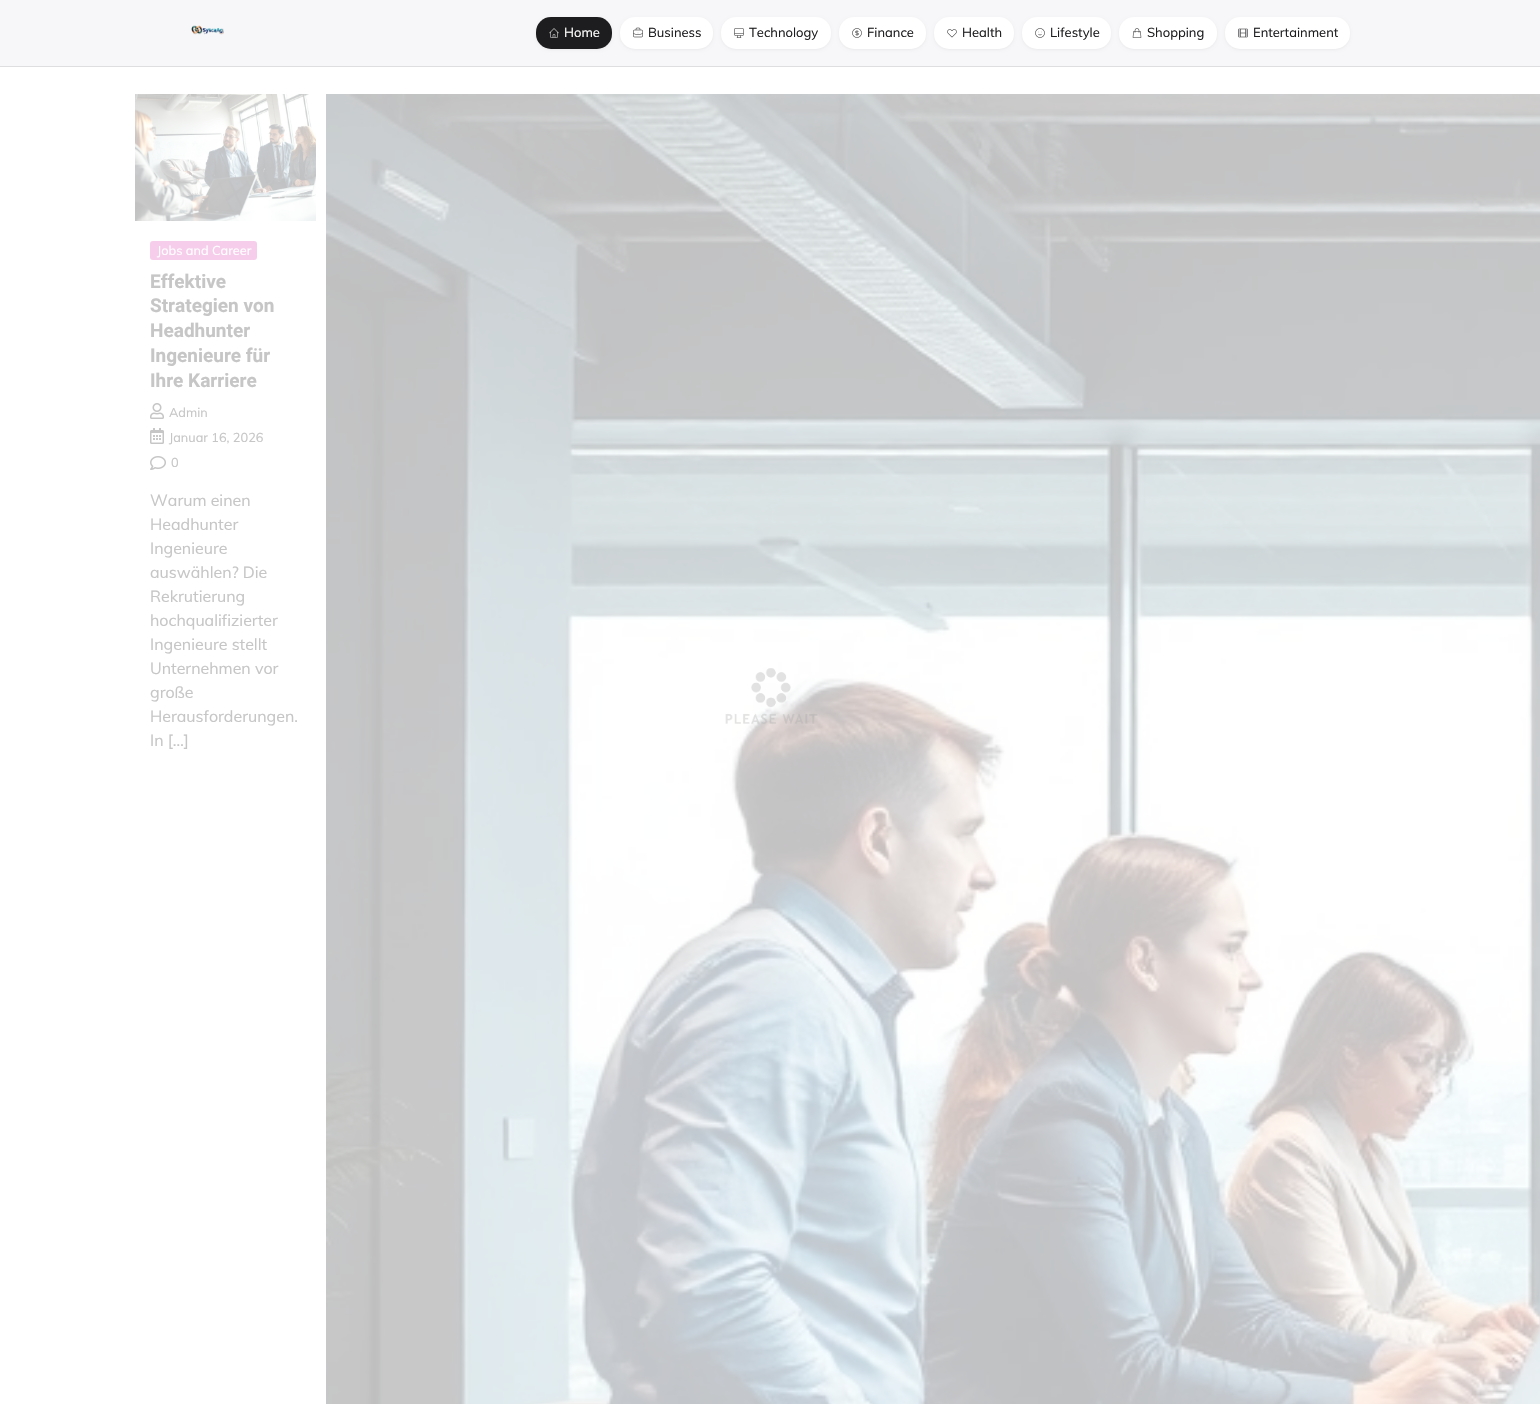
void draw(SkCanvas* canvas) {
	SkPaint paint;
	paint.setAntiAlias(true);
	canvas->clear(0xffffffff);
	paint.setColor(0xfff7f7f9);
	canvas->drawRect(SkRect::MakeXYWH(0, 0, 1540, 66), paint);
	paint.setColor(0xffdedee0);
	canvas->drawRect(SkRect::MakeXYWH(0, 66, 1540, 1), paint);
	canvas->drawImageRect(SkImages::DeferredFromEncodedData(SkData::MakeFromFileName("img1.png")), SkRect::MakeXYWH(191, 25, 33, 10), SkSamplingOptions());
	paint.setColor(0x0d000000);
	paint.setMaskFilter(SkMaskFilter::MakeBlur(kNormal_SkBlurStyle, 1.5));
	canvas->drawRoundRect(SkRect::MakeXYWH(536, 18, 76, 32), 15, 15, paint);
	paint.setMaskFilter(nullptr);
	paint.setColor(0xff1d1d1f);
	canvas->drawRoundRect(SkRect::MakeXYWH(536, 17, 76, 32), 15, 15, paint);
	canvas->drawImageRect(SkImages::DeferredFromEncodedData(SkData::MakeFromFileName("img2.png")), SkRect::MakeXYWH(549, 28, 10, 10), SkSamplingOptions());
	SkFont f1(fontMgr->matchFamilyStyle("Muli", SkFontStyle::Normal()), 13);
	f1.setSubpixel(true);
	paint.setColor(0xffffffff);
	canvas->drawString("Home", 564, 37, f1, paint);
	paint.setColor(0x0d000000);
	paint.setMaskFilter(SkMaskFilter::MakeBlur(kNormal_SkBlurStyle, 1.5));
	canvas->drawRoundRect(SkRect::MakeXYWH(620, 18, 93, 32), 15, 15, paint);
	paint.setMaskFilter(nullptr);
	paint.setColor(0xffffffff);
	canvas->drawRoundRect(SkRect::MakeXYWH(620, 17, 93, 32), 15, 15, paint);
	canvas->drawImageRect(SkImages::DeferredFromEncodedData(SkData::MakeFromFileName("img3.png")), SkRect::MakeXYWH(633, 27, 10, 11), SkSamplingOptions());
	paint.setColor(0xff1d1d1f);
	canvas->drawString("Business", 648, 37, f1, paint);
	paint.setColor(0x0d000000);
	paint.setMaskFilter(SkMaskFilter::MakeBlur(kNormal_SkBlurStyle, 1.5));
	canvas->drawRoundRect(SkRect::MakeXYWH(721, 18, 110, 32), 15, 15, paint);
	paint.setMaskFilter(nullptr);
	paint.setColor(0xffffffff);
	canvas->drawRoundRect(SkRect::MakeXYWH(721, 17, 110, 32), 15, 15, paint);
	canvas->drawImageRect(SkImages::DeferredFromEncodedData(SkData::MakeFromFileName("img4.png")), SkRect::MakeXYWH(734, 28, 10, 10), SkSamplingOptions());
	paint.setColor(0xff1d1d1f);
	canvas->drawString("Technology", 749, 37, f1, paint);
	paint.setColor(0x0d000000);
	paint.setMaskFilter(SkMaskFilter::MakeBlur(kNormal_SkBlurStyle, 1.5));
	canvas->drawRoundRect(SkRect::MakeXYWH(839, 18, 87, 32), 15, 15, paint);
	paint.setMaskFilter(nullptr);
	paint.setColor(0xffffffff);
	canvas->drawRoundRect(SkRect::MakeXYWH(839, 17, 87, 32), 15, 15, paint);
	canvas->drawImageRect(SkImages::DeferredFromEncodedData(SkData::MakeFromFileName("img5.png")), SkRect::MakeXYWH(852, 28, 10, 10), SkSamplingOptions());
	paint.setColor(0xff1d1d1f);
	canvas->drawString("Finance", 867, 37, f1, paint);
	paint.setColor(0x0d000000);
	paint.setMaskFilter(SkMaskFilter::MakeBlur(kNormal_SkBlurStyle, 1.5));
	canvas->drawRoundRect(SkRect::MakeXYWH(934, 18, 80, 32), 15, 15, paint);
	paint.setMaskFilter(nullptr);
	paint.setColor(0xffffffff);
	canvas->drawRoundRect(SkRect::MakeXYWH(934, 17, 80, 32), 15, 15, paint);
	canvas->drawImageRect(SkImages::DeferredFromEncodedData(SkData::MakeFromFileName("img6.png")), SkRect::MakeXYWH(947, 29, 10, 9), SkSamplingOptions());
	paint.setColor(0xff1d1d1f);
	canvas->drawString("Health", 962, 37, f1, paint);
	paint.setColor(0x0d000000);
	paint.setMaskFilter(SkMaskFilter::MakeBlur(kNormal_SkBlurStyle, 1.5));
	canvas->drawRoundRect(SkRect::MakeXYWH(1022, 18, 89, 32), 15, 15, paint);
	paint.setMaskFilter(nullptr);
	paint.setColor(0xffffffff);
	canvas->drawRoundRect(SkRect::MakeXYWH(1022, 17, 89, 32), 15, 15, paint);
	canvas->drawImageRect(SkImages::DeferredFromEncodedData(SkData::MakeFromFileName("img7.png")), SkRect::MakeXYWH(1035, 28, 10, 10), SkSamplingOptions());
	paint.setColor(0xff1d1d1f);
	canvas->drawString("Lifestyle", 1050, 37, f1, paint);
	paint.setColor(0x0d000000);
	paint.setMaskFilter(SkMaskFilter::MakeBlur(kNormal_SkBlurStyle, 1.5));
	canvas->drawRoundRect(SkRect::MakeXYWH(1119, 18, 98, 32), 15, 15, paint);
	paint.setMaskFilter(nullptr);
	paint.setColor(0xffffffff);
	canvas->drawRoundRect(SkRect::MakeXYWH(1119, 17, 98, 32), 15, 15, paint);
	canvas->drawImageRect(SkImages::DeferredFromEncodedData(SkData::MakeFromFileName("img8.png")), SkRect::MakeXYWH(1132, 28, 10, 10), SkSamplingOptions());
	paint.setColor(0xff1d1d1f);
	canvas->drawString("Shopping", 1147, 37, f1, paint);
	paint.setColor(0x0d000000);
	paint.setMaskFilter(SkMaskFilter::MakeBlur(kNormal_SkBlurStyle, 1.5));
	canvas->drawRoundRect(SkRect::MakeXYWH(1225, 18, 125, 32), 15, 15, paint);
	paint.setMaskFilter(nullptr);
	paint.setColor(0xffffffff);
	canvas->drawRoundRect(SkRect::MakeXYWH(1225, 17, 125, 32), 15, 15, paint);
	canvas->drawImageRect(SkImages::DeferredFromEncodedData(SkData::MakeFromFileName("img9.png")), SkRect::MakeXYWH(1238, 28, 10, 10), SkSamplingOptions());
	paint.setColor(0xff1d1d1f);
	canvas->drawString("Entertainment", 1253, 37, f1, paint);
	canvas->drawImageRect(SkImages::DeferredFromEncodedData(SkData::MakeFromFileName("img10.png")), SkRect::MakeXYWH(135, 94, 181, 127), SkSamplingOptions());
	paint.setColor(0xfff6ceeb);
	canvas->drawRoundRect(SkRect::MakeXYWH(150, 241, 107, 19), 3, 3, paint);
	SkFont f2(fontMgr->matchFamilyStyle("Muli", SkFontStyle::Normal()), 12.75);
	f2.setSubpixel(true);
	paint.setColor(0xffffffff);
	canvas->drawString("Jobs and Career", 157, 255, f2, paint);
	SkFont f3(fontMgr->matchFamilyStyle("Roboto", SkFontStyle::Bold()), 19);
	f3.setSubpixel(true);
	paint.setColor(0xffc6c6c7);
	canvas->drawString("Effektive", 150, 288, f3, paint);
	canvas->drawString("Strategien von", 150, 312, f3, paint);
	canvas->drawString("Headhunter", 150, 337, f3, paint);
	canvas->drawString("Ingenieure für", 150, 362, f3, paint);
	canvas->drawString("Ihre Karriere", 150, 387, f3, paint);
	canvas->drawImageRect(SkImages::DeferredFromEncodedData(SkData::MakeFromFileName("img11.png")), SkRect::MakeXYWH(150, 403, 14, 16), SkSamplingOptions());
	canvas->drawString("Admin", 169, 417, f2, paint);
	canvas->drawImageRect(SkImages::DeferredFromEncodedData(SkData::MakeFromFileName("img12.png")), SkRect::MakeXYWH(150, 428, 14, 16), SkSamplingOptions());
	canvas->drawString("Januar 16, 2026", 169, 442, f2, paint);
	canvas->drawImageRect(SkImages::DeferredFromEncodedData(SkData::MakeFromFileName("img13.png")), SkRect::MakeXYWH(150, 456, 16, 14), SkSamplingOptions());
	canvas->drawString("0", 171, 467, f2, paint);
	SkFont f4(fontMgr->matchFamilyStyle("Muli", SkFontStyle::Normal()), 16);
	f4.setSubpixel(true);
	canvas->drawString("Warum einen", 150, 506, f4, paint);
	canvas->drawString("Headhunter", 150, 530, f4, paint);
	canvas->drawString("Ingenieure", 150, 554, f4, paint);
	canvas->drawString("auswählen? Die", 150, 578, f4, paint);
	canvas->drawString("Rekrutierung", 150, 602, f4, paint);
	canvas->drawString("hochqualifizierter", 150, 626, f4, paint);
	canvas->drawString("Ingenieure stellt", 150, 650, f4, paint);
	canvas->drawString("Unternehmen vor", 150, 674, f4, paint);
	canvas->drawString("große", 150, 698, f4, paint);
	canvas->drawString("Herausforderungen.", 150, 722, f4, paint);
	canvas->drawString("In […]", 150, 746, f4, paint);
	canvas->drawImageRect(SkImages::DeferredFromEncodedData(SkData::MakeFromFileName("img14.png")), SkRect::MakeXYWH(326, 94, 1214, 1310), SkSamplingOptions());
	canvas->drawImageRect(SkImages::DeferredFromEncodedData(SkData::MakeFromFileName("img15.png")), SkRect::MakeXYWH(725, 668, 93, 56), SkSamplingOptions());
}
